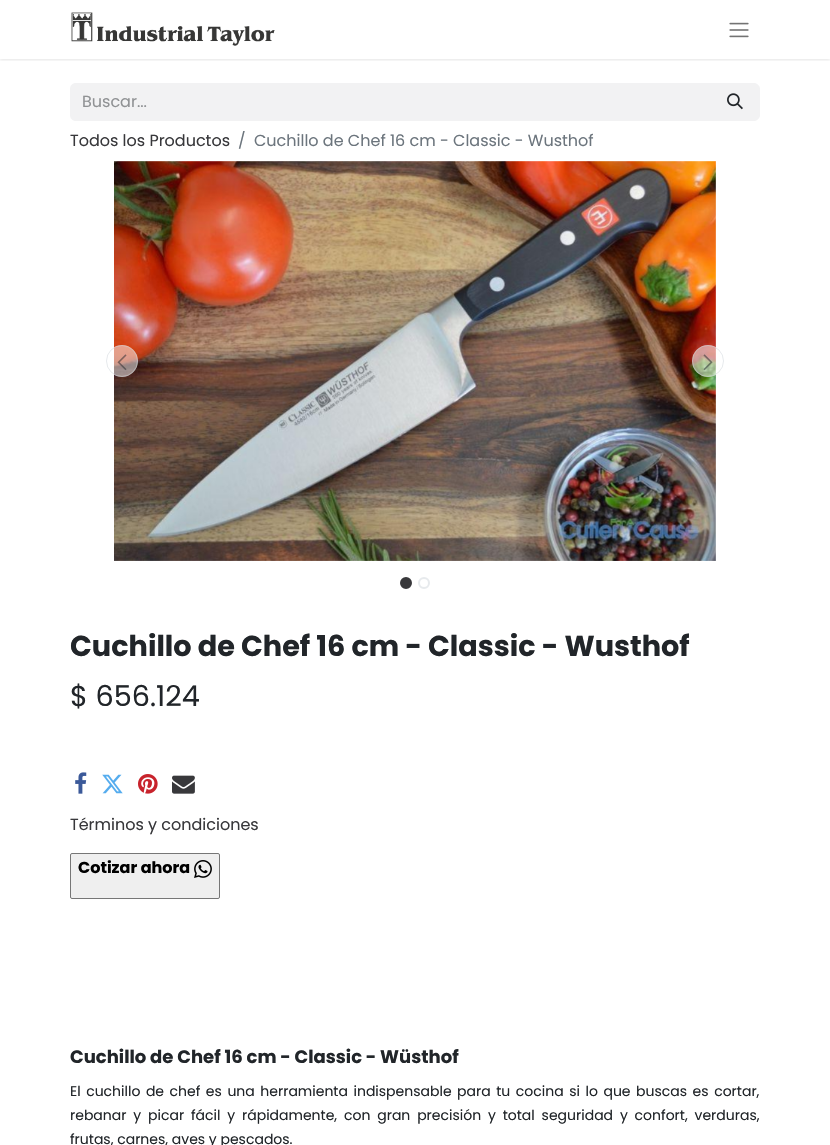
void draw(SkCanvas* canvas) {
	SkPaint paint;
	paint.setAntiAlias(true);
	auto spacedText = [&](const char* s, float x, float y, const SkFont& font, const SkPaint& ink, float letter, float word) {
		std::vector<SkGlyphID> glyphs(font.countText(s, strlen(s), SkTextEncoding::kUTF8));
		std::vector<float> xs(glyphs.size());
		font.textToGlyphs(s, strlen(s), SkTextEncoding::kUTF8, glyphs);
		font.getXPos(glyphs, xs, x);
		float extra = 0;
		for (size_t i = 0; i < glyphs.size(); i++) {
			xs[i] += extra;
			extra += letter + word * (glyphs[i] == font.unicharToGlyph(' '));
		}
		canvas->drawTextBlob(SkTextBlob::MakeFromPosHGlyphs(glyphs, xs, y, font), 0, 0, ink);
	};
	auto svgPath = [&](const char* data, bool evenOdd = false) {
		SkPath result = *SkParsePath::FromSVGString(data);
		if (evenOdd) result.setFillType(SkPathFillType::kEvenOdd);
		return result;
	};
	canvas->clear(0xffffffff);
	canvas->save();
	canvas->clipRect(SkRect::MakeXYWH(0, 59, 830, 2));
	paint.setColor(0x1a000000);
	paint.setMaskFilter(SkMaskFilter::MakeBlur(kNormal_SkBlurStyle, 1.5));
	canvas->drawRect(SkRect::MakeXYWH(0, 1, 830, 59), paint);
	paint.setMaskFilter(nullptr);
	canvas->restore();
	canvas->drawImageRect(SkImages::DeferredFromEncodedData(SkData::MakeFromFileName("img1.png")), SkRect::MakeXYWH(71, 12, 204, 34), SkSamplingOptions());
	canvas->drawImageRect(SkImages::DeferredFromEncodedData(SkData::MakeFromFileName("img2.png")), SkRect::MakeXYWH(729, 22, 20, 16), SkSamplingOptions());
	paint.setColor(0xfff2f2f3);
	canvas->drawPath(svgPath("M76 83H711V121H76C72.5 121 70 118.5 70 115V89C70 85.5 72.5 83 76 83Z"), paint);
	SkFont f1(fontMgr->matchFamilyStyle("Poppins", SkFontStyle::Normal()), 16);
	f1.setSubpixel(true);
	paint.setColor(0xff909294);
	canvas->drawString("Buscar...", 82, 107, f1, paint);
	paint.setColor(0xfff2f2f3);
	canvas->drawPath(svgPath("M710.5 83.5H754C757 83.5 759.5 86 759.5 89V115C759.5 118 757 120.5 754 120.5H710.5Z"), paint);
	paint.setStroke(true);
	paint.setStrokeWidth(1);
	canvas->drawPath(svgPath("M710.5 83.5H754C757 83.5 759.5 86 759.5 89V115C759.5 118 757 120.5 754 120.5H710.5Z"), paint);
	canvas->drawImageRect(SkImages::DeferredFromEncodedData(SkData::MakeFromFileName("img3.png")), SkRect::MakeXYWH(727, 93, 16, 17), SkSamplingOptions());
	paint.setStroke(false);
	paint.setColor(0xff38383b);
	canvas->drawString("Todos los Productos", 70, 146, f1, paint);
	paint.setColor(0xff6c757d);
	canvas->drawString("/", 238, 146, f1, paint);
	canvas->drawString("Cuchillo de Chef 16 cm - Classic - Wusthof", 254, 146, f1, paint);
	canvas->drawImageRect(SkImages::DeferredFromEncodedData(SkData::MakeFromFileName("img4.png")), SkRect::MakeXYWH(114, 161, 602, 400), SkSamplingOptions());
	paint.setColor(0x80ffffff);
	canvas->drawCircle(122, 361, 16, paint);
	paint.setStroke(true);
	paint.setColor(0x80ced4da);
	canvas->drawCircle(122, 361, 15.5, paint);
	canvas->drawImageRect(SkImages::DeferredFromEncodedData(SkData::MakeFromFileName("img5.png")), SkRect::MakeXYWH(117, 354, 10, 17), SkSamplingOptions());
	paint.setStroke(false);
	paint.setColor(0x80ffffff);
	canvas->drawCircle(708, 361, 16, paint);
	paint.setStroke(true);
	paint.setColor(0x80ced4da);
	canvas->drawCircle(708, 361, 15.5, paint);
	canvas->drawImageRect(SkImages::DeferredFromEncodedData(SkData::MakeFromFileName("img6.png")), SkRect::MakeXYWH(703, 354, 10, 17), SkSamplingOptions());
	paint.setStroke(false);
	paint.setColor(0xff38383b);
	canvas->drawCircle(406, 583, 5, paint);
	paint.setStroke(true);
	paint.setStrokeWidth(2);
	canvas->drawCircle(406, 583, 5, paint);
	paint.setColor(0xffe7eaed);
	canvas->drawCircle(424, 583, 5, paint);
	SkFont f2(fontMgr->matchFamilyStyle("Poppins", SkFontStyle::Bold()), 28.7);
	f2.setSubpixel(true);
	paint.setStroke(false);
	paint.setColor(0xff212529);
	canvas->drawString("Cuchillo de Chef 16 cm - Classic - Wusthof", 70, 656, f2, paint);
	SkFont f3(fontMgr->matchFamilyStyle("Poppins", SkFontStyle::Normal()), 28.7);
	f3.setSubpixel(true);
	canvas->drawString("$ 656.124", 70, 706, f3, paint);
	canvas->drawImageRect(SkImages::DeferredFromEncodedData(SkData::MakeFromFileName("img7.png")), SkRect::MakeXYWH(75, 772, 12, 22), SkSamplingOptions());
	canvas->drawImageRect(SkImages::DeferredFromEncodedData(SkData::MakeFromFileName("img8.png")), SkRect::MakeXYWH(102, 774, 21, 20), SkSamplingOptions());
	canvas->drawImageRect(SkImages::DeferredFromEncodedData(SkData::MakeFromFileName("img9.png")), SkRect::MakeXYWH(138, 774, 20, 20), SkSamplingOptions());
	canvas->drawImageRect(SkImages::DeferredFromEncodedData(SkData::MakeFromFileName("img10.png")), SkRect::MakeXYWH(172, 775, 23, 19), SkSamplingOptions());
	paint.setColor(0xff38383b);
	canvas->drawString("Términos y condiciones", 70, 830, f1, paint);
	paint.setColor(0xffefefef);
	canvas->drawRoundRect(SkRect::MakeXYWH(70.5, 853.5, 149, 45), 1.5, 1.5, paint);
	paint.setStroke(true);
	paint.setStrokeWidth(1);
	paint.setColor(0xff767676);
	canvas->drawRoundRect(SkRect::MakeXYWH(70.5, 853.5, 149, 45), 1.5, 1.5, paint);
	SkFont f4(fontMgr->matchFamilyStyle("Poppins", SkFontStyle::Bold()), 16);
	f4.setSubpixel(true);
	paint.setStroke(false);
	paint.setColor(0xff000000);
	canvas->drawString("Cotizar ahora", 78, 873, f4, paint);
	canvas->drawImageRect(SkImages::DeferredFromEncodedData(SkData::MakeFromFileName("img11.png")), SkRect::MakeXYWH(194, 860, 18, 18), SkSamplingOptions());
	SkFont f5(fontMgr->matchFamilyStyle("Poppins", SkFontStyle::Bold()), 18);
	f5.setSubpixel(true);
	paint.setColor(0xff212529);
	canvas->drawString("Cuchillo de Chef 16 cm - Classic - Wüsthof", 70, 1063, f5, paint);
	SkFont f6(fontMgr->matchFamilyStyle("Poppins", SkFontStyle::Normal()), 14);
	f6.setSubpixel(true);
	spacedText("El cuchillo de chef es una herramienta indispensable para tu cocina si lo que buscas es cortar,", 70, 1096, f6, paint, 0, 1.8);
	spacedText("rebanar y picar fácil y rápidamente, con gran precisión y total seguridad y confort, verduras,", 70, 1120, f6, paint, 0, 3.1);
	canvas->drawString("frutas, carnes, aves y pescados.", 70, 1144, f6, paint);
}
